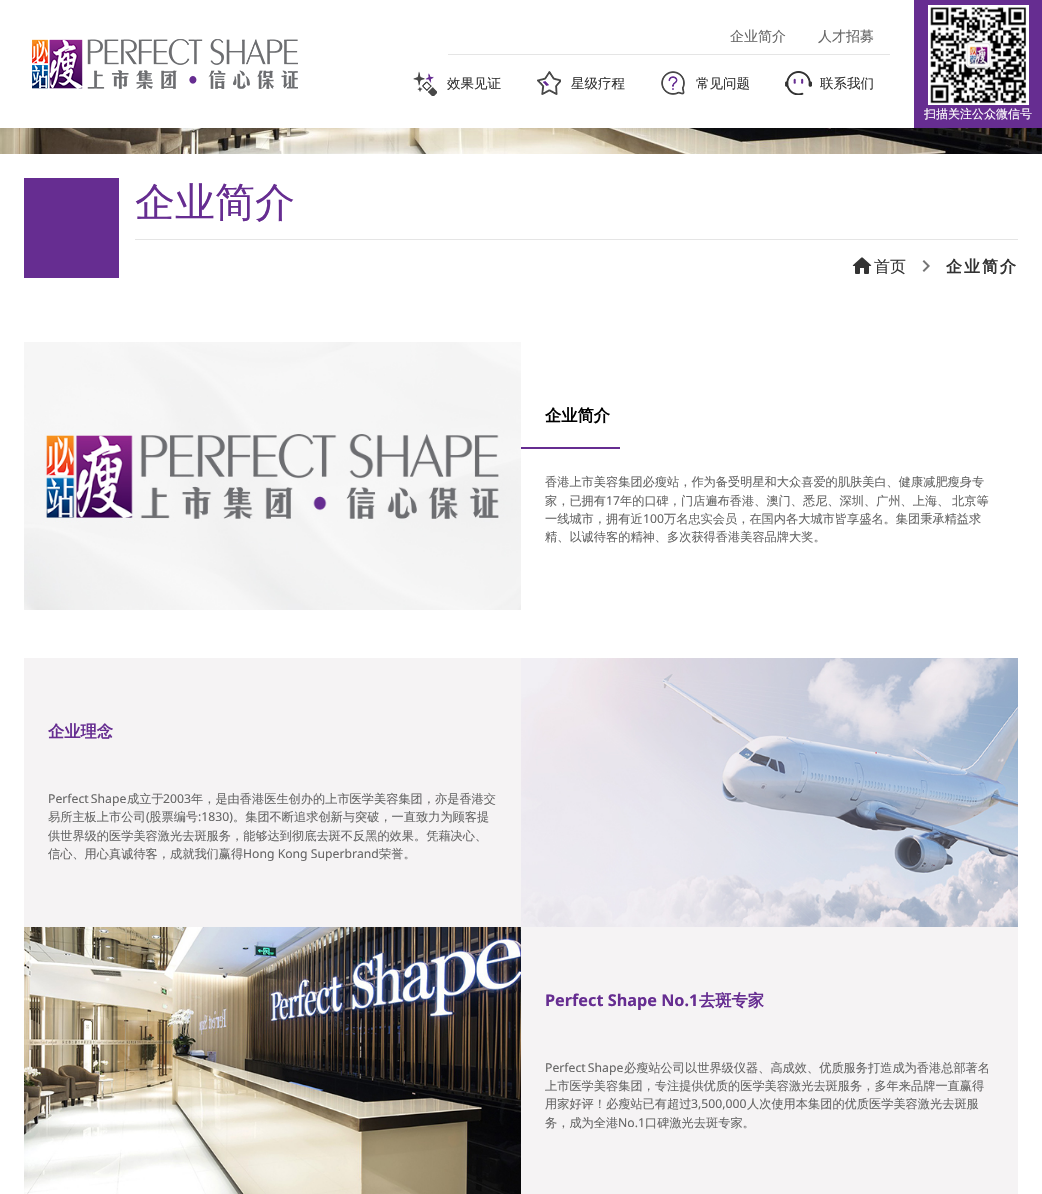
void draw(SkCanvas* canvas) {
	SkPaint paint;
	paint.setAntiAlias(true);
	auto spacedText = [&](const char* s, float x, float y, const SkFont& font, const SkPaint& ink, float letter, float word) {
		std::vector<SkGlyphID> glyphs(font.countText(s, strlen(s), SkTextEncoding::kUTF8));
		std::vector<float> xs(glyphs.size());
		font.textToGlyphs(s, strlen(s), SkTextEncoding::kUTF8, glyphs);
		font.getXPos(glyphs, xs, x);
		float extra = 0;
		for (size_t i = 0; i < glyphs.size(); i++) {
			xs[i] += extra;
			extra += letter + word * (glyphs[i] == font.unicharToGlyph(' '));
		}
		canvas->drawTextBlob(SkTextBlob::MakeFromPosHGlyphs(glyphs, xs, y, font), 0, 0, ink);
	};
	canvas->clear(0xffffffff);
	canvas->drawImageRect(SkImages::DeferredFromEncodedData(SkData::MakeFromFileName("img7.png")), SkRect::MakeXYWH(0, 128, 1042, 26), SkSamplingOptions());
	paint.setColor(0x0d000000);
	paint.setMaskFilter(SkMaskFilter::MakeBlur(kNormal_SkBlurStyle, 2));
	canvas->drawRect(SkRect::MakeXYWH(-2, -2, 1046, 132), paint);
	paint.setMaskFilter(nullptr);
	paint.setColor(0xffffffff);
	canvas->drawRect(SkRect::MakeXYWH(0, 0, 914, 128), paint);
	canvas->drawImageRect(SkImages::DeferredFromEncodedData(SkData::MakeFromFileName("img1.png")), SkRect::MakeXYWH(32, 39, 266, 50), SkSamplingOptions());
	paint.setColor(0xffe5e5e5);
	canvas->drawRect(SkRect::MakeXYWH(448, 54, 442, 1), paint);
	SkFont f1(fontMgr->matchFamilyStyle("WenQuanYi Zen Hei", SkFontStyle(500, SkFontStyle::kNormal_Width, SkFontStyle::kUpright_Slant)), 14);
	f1.setSubpixel(true);
	paint.setColor(0xff666666);
	canvas->drawString("企业简介", 730, 41, f1, paint);
	canvas->drawString("人才招募", 818, 41, f1, paint);
	canvas->drawImageRect(SkImages::DeferredFromEncodedData(SkData::MakeFromFileName("img2.png")), SkRect::MakeXYWH(413, 71, 24, 25), SkSamplingOptions());
	SkFont f2(fontMgr->matchFamilyStyle("WenQuanYi Zen Hei", SkFontStyle(500, SkFontStyle::kNormal_Width, SkFontStyle::kUpright_Slant)), 13.5);
	f2.setSubpixel(true);
	paint.setColor(0xff333333);
	canvas->drawString("效果见证", 447, 88, f2, paint);
	canvas->drawImageRect(SkImages::DeferredFromEncodedData(SkData::MakeFromFileName("img3.png")), SkRect::MakeXYWH(537, 71, 24, 24), SkSamplingOptions());
	canvas->drawString("星级疗程", 571, 88, f2, paint);
	canvas->drawImageRect(SkImages::DeferredFromEncodedData(SkData::MakeFromFileName("img4.png")), SkRect::MakeXYWH(661, 71, 24, 24), SkSamplingOptions());
	canvas->drawString("常见问题", 696, 88, f2, paint);
	canvas->drawImageRect(SkImages::DeferredFromEncodedData(SkData::MakeFromFileName("img5.png")), SkRect::MakeXYWH(785, 71, 27, 24), SkSamplingOptions());
	canvas->drawString("联系我们", 820, 88, f2, paint);
	paint.setColor(0xff662d91);
	canvas->drawRect(SkRect::MakeXYWH(914, 0, 128, 128), paint);
	canvas->drawImageRect(SkImages::DeferredFromEncodedData(SkData::MakeFromFileName("img6.png")), SkRect::MakeXYWH(928, 5, 101, 100), SkSamplingOptions());
	SkFont f3(fontMgr->matchFamilyStyle("WenQuanYi Zen Hei", SkFontStyle(500, SkFontStyle::kNormal_Width, SkFontStyle::kUpright_Slant)), 12);
	f3.setSubpixel(true);
	paint.setColor(0xffffffff);
	canvas->drawString("扫描关注公众微信号", 924, 118, f3, paint);
	paint.setColor(0xff662d91);
	canvas->drawRect(SkRect::MakeXYWH(24, 178, 95, 100), paint);
	SkFont f4(fontMgr->matchFamilyStyle("WenQuanYi Zen Hei", SkFontStyle(500, SkFontStyle::kNormal_Width, SkFontStyle::kUpright_Slant)), 40);
	f4.setSubpixel(true);
	canvas->drawString("企业简介", 135, 216, f4, paint);
	paint.setColor(0xffe5e5e5);
	canvas->drawRect(SkRect::MakeXYWH(135, 239, 883, 1), paint);
	canvas->drawImageRect(SkImages::DeferredFromEncodedData(SkData::MakeFromFileName("img8.png")), SkRect::MakeXYWH(852, 257, 20, 17), SkSamplingOptions());
	SkFont f5(fontMgr->matchFamilyStyle("WenQuanYi Zen Hei", SkFontStyle(500, SkFontStyle::kNormal_Width, SkFontStyle::kUpright_Slant)), 16);
	f5.setSubpixel(true);
	paint.setColor(0xff333333);
	canvas->drawString("首页", 874, 272, f5, paint);
	canvas->drawImageRect(SkImages::DeferredFromEncodedData(SkData::MakeFromFileName("img9.png")), SkRect::MakeXYWH(922, 260, 8, 12), SkSamplingOptions());
	SkFont f6(fontMgr->matchFamilyStyle("WenQuanYi Zen Hei", SkFontStyle::Bold()), 16);
	f6.setSubpixel(true);
	spacedText("企业简介", 946, 272, f6, paint, 2, 0);
	canvas->drawImageRect(SkImages::DeferredFromEncodedData(SkData::MakeFromFileName("img10.png")), SkRect::MakeXYWH(24, 342, 497, 268), SkSamplingOptions());
	SkFont f7(fontMgr->matchFamilyStyle("WenQuanYi Zen Hei", SkFontStyle::Bold()), 16.25);
	f7.setSubpixel(true);
	paint.setColor(0xff000000);
	canvas->drawString("企业简介", 545, 421, f7, paint);
	paint.setColor(0xff662d91);
	canvas->drawRect(SkRect::MakeXYWH(521, 447, 99, 2), paint);
	SkFont f8(fontMgr->matchFamilyStyle("WenQuanYi Zen Hei", SkFontStyle(500, SkFontStyle::kNormal_Width, SkFontStyle::kUpright_Slant)), 12.2);
	f8.setSubpixel(true);
	paint.setColor(0xff666666);
	canvas->drawString("香港上市美容集团必瘦站，作为备受明星和大众喜爱的肌肤美白、健康减肥瘦身专", 545, 486, f8, paint);
	canvas->drawString("家，已拥有", 545, 505, f8, paint);
	SkFont f9(fontMgr->matchFamilyStyle("Noto Sans", SkFontStyle::Normal()), 12.2);
	f9.setSubpixel(true);
	canvas->drawString("17", 606, 505, f9, paint);
	spacedText("年的口碑，门店遍布香港、澳门、悉尼、深圳、广州、上海、 北京等", 620, 505, f8, paint, 0, -1);
	canvas->drawString("一线城市，拥有近", 545, 523, f8, paint);
	canvas->drawString("100", 643, 523, f9, paint);
	canvas->drawString("万名忠实会员，在国内各大城市皆享盛名。集团秉承精益求", 664, 523, f8, paint);
	canvas->drawString("精、以诚待客的精神、多次获得香港美容品牌大奖。", 545, 541, f8, paint);
	paint.setColor(0xfff5f3f4);
	canvas->drawRect(SkRect::MakeXYWH(24, 658, 497, 269), paint);
	paint.setColor(0xff662d91);
	canvas->drawString("企业理念", 48, 737, f7, paint);
	paint.setColor(0xff666666);
	spacedText("Perfect Shape", 48, 803, f9, paint, 0, -1);
	canvas->drawString("成立于", 127, 803, f8, paint);
	canvas->drawString("2003", 163, 803, f9, paint);
	canvas->drawString("年，是由香港医生创办的上市医学美容集团，亦是香港交", 191, 803, f8, paint);
	canvas->drawString("易所主板上市公司 股票编号", 48, 821, f8, paint);
	canvas->drawString("。集团不断追求创新与突破，一直致力为顾客提", 233, 821, f8, paint);
	canvas->drawString("(", 146, 821, f9, paint);
	canvas->drawString(":1830)", 198, 821, f9, paint);
	canvas->drawString("供世界级的医学美容激光去斑服务，能够达到彻底去斑不反黑的效果。凭藉决心、", 48, 840, f8, paint);
	canvas->drawString("信心、用心真诚待客，成就我们赢得", 48, 858, f8, paint);
	canvas->drawString("Hong Kong Superbrand", 243, 858, f9, paint);
	canvas->drawString("荣誉。", 379, 858, f8, paint);
	canvas->drawImageRect(SkImages::DeferredFromEncodedData(SkData::MakeFromFileName("img11.png")), SkRect::MakeXYWH(521, 658, 497, 269), SkSamplingOptions());
	canvas->drawImageRect(SkImages::DeferredFromEncodedData(SkData::MakeFromFileName("img12.png")), SkRect::MakeXYWH(24, 927, 497, 267), SkSamplingOptions());
	paint.setColor(0xfff5f3f4);
	canvas->drawRect(SkRect::MakeXYWH(521, 927, 497, 267), paint);
	SkFont f10(fontMgr->matchFamilyStyle("Noto Sans", SkFontStyle::Bold()), 16.25);
	f10.setSubpixel(true);
	paint.setColor(0xff662d91);
	canvas->drawString("Perfect Shape No.1", 545, 1006, f10, paint);
	canvas->drawString("去斑专家", 699, 1006, f7, paint);
	paint.setColor(0xff666666);
	spacedText("Perfect Shape", 545, 1072, f9, paint, 0, -1);
	canvas->drawString("必瘦站公司以世界级仪器、高成效、优质服务打造成为香港总部著名", 624, 1072, f8, paint);
	canvas->drawString("上市医学美容集团，专注提供优质的医学美容激光去斑服务，多年来品牌一直赢得", 545, 1090, f8, paint);
	canvas->drawString("用家好评！必瘦站已有超过", 545, 1108, f8, paint);
	canvas->drawString("3,500,000", 691, 1108, f9, paint);
	canvas->drawString("人次使用本集团的优质医学美容激光去斑服", 747, 1108, f8, paint);
	canvas->drawString("务，成为全港", 545, 1127, f8, paint);
	canvas->drawString("No.1", 618, 1127, f9, paint);
	canvas->drawString("口碑激光去斑专家。", 645, 1127, f8, paint);
}
